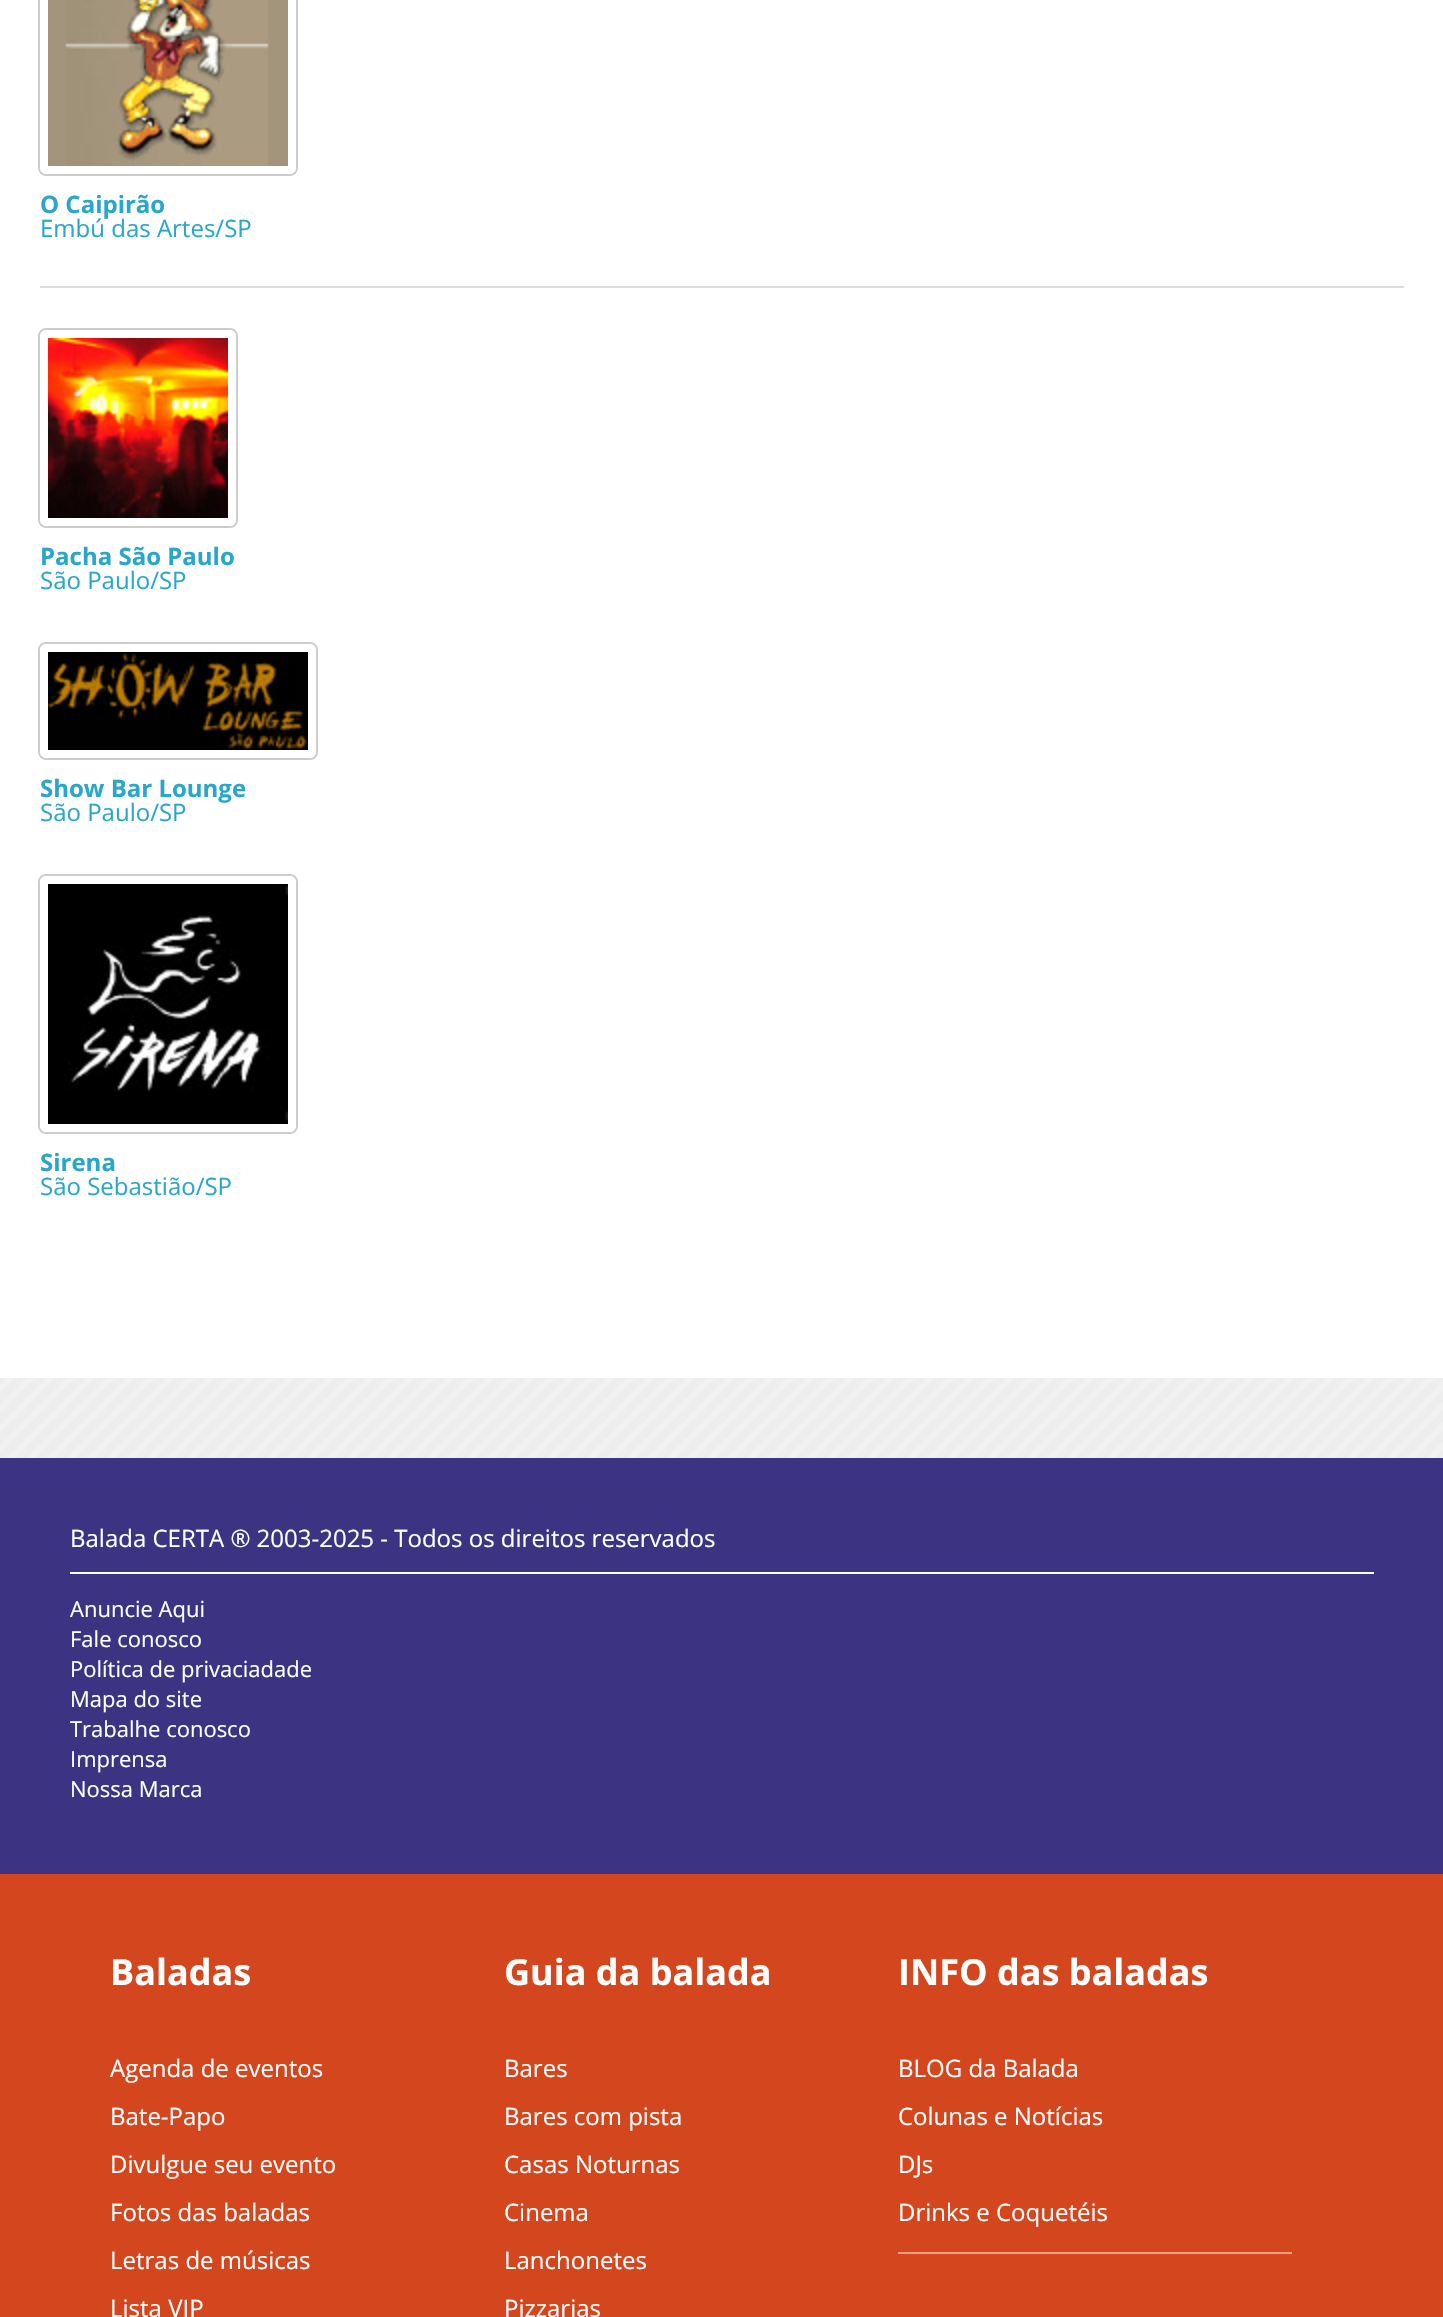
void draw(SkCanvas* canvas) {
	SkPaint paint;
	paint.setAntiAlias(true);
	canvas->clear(0xffffffff);
	canvas->drawImageRect(SkImages::DeferredFromEncodedData(SkData::MakeFromFileName("img1.png")), SkRect::MakeXYWH(0, 1378, 1443, 80), SkSamplingOptions());
	paint.setStroke(true);
	paint.setStrokeWidth(2);
	paint.setColor(0xffcccccc);
	canvas->drawRoundRect(SkRect::MakeXYWH(39, -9, 258, 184), 7, 7, paint);
	paint.setStrokeWidth(8);
	paint.setColor(0xffffffff);
	canvas->drawRoundRect(SkRect::MakeXYWH(44, -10, 248, 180), 2, 2, paint);
	canvas->drawImageRect(SkImages::DeferredFromEncodedData(SkData::MakeFromFileName("img2.png")), SkRect::MakeXYWH(48, 0, 240, 166), SkSamplingOptions());
	SkFont f1(fontMgr->matchFamilyStyle("Open Sans", SkFontStyle::Bold()), 24);
	f1.setSubpixel(true);
	paint.setStroke(false);
	paint.setColor(0xff2ba6cb);
	canvas->drawString("O Caipirão", 40, 213, f1, paint);
	SkFont f2(fontMgr->matchFamilyStyle("Open Sans", SkFontStyle::Normal()), 24);
	f2.setSubpixel(true);
	canvas->drawString("Embú das Artes/SP", 40, 237, f2, paint);
	paint.setColor(0xffdddddd);
	canvas->drawRect(SkRect::MakeXYWH(40, 286, 1364, 2), paint);
	paint.setStroke(true);
	paint.setStrokeWidth(2);
	paint.setColor(0xffcccccc);
	canvas->drawRoundRect(SkRect::MakeXYWH(39, 329, 198, 198), 7, 7, paint);
	paint.setStrokeWidth(8);
	paint.setColor(0xffffffff);
	canvas->drawRoundRect(SkRect::MakeXYWH(44, 334, 188, 188), 2, 2, paint);
	canvas->drawImageRect(SkImages::DeferredFromEncodedData(SkData::MakeFromFileName("img3.png")), SkRect::MakeXYWH(48, 338, 180, 180), SkSamplingOptions());
	paint.setStroke(false);
	paint.setColor(0xff2ba6cb);
	canvas->drawString("Pacha São Paulo", 40, 565, f1, paint);
	canvas->drawString("São Paulo/SP", 40, 589, f2, paint);
	paint.setStroke(true);
	paint.setStrokeWidth(2);
	paint.setColor(0xffcccccc);
	canvas->drawRoundRect(SkRect::MakeXYWH(39, 643, 278, 116), 7, 7, paint);
	paint.setStrokeWidth(8);
	paint.setColor(0xffffffff);
	canvas->drawRoundRect(SkRect::MakeXYWH(44, 648, 268, 106), 2, 2, paint);
	canvas->drawImageRect(SkImages::DeferredFromEncodedData(SkData::MakeFromFileName("img4.png")), SkRect::MakeXYWH(48, 652, 260, 98), SkSamplingOptions());
	paint.setStroke(false);
	paint.setColor(0xff2ba6cb);
	canvas->drawString("Show Bar Lounge", 40, 797, f1, paint);
	canvas->drawString("São Paulo/SP", 40, 821, f2, paint);
	paint.setStroke(true);
	paint.setStrokeWidth(2);
	paint.setColor(0xffcccccc);
	canvas->drawRoundRect(SkRect::MakeXYWH(39, 875, 258, 258), 7, 7, paint);
	paint.setStrokeWidth(8);
	paint.setColor(0xffffffff);
	canvas->drawRoundRect(SkRect::MakeXYWH(44, 880, 248, 248), 2, 2, paint);
	canvas->drawImageRect(SkImages::DeferredFromEncodedData(SkData::MakeFromFileName("img5.png")), SkRect::MakeXYWH(48, 884, 240, 240), SkSamplingOptions());
	paint.setStroke(false);
	paint.setColor(0xff2ba6cb);
	canvas->drawString("Sirena", 40, 1171, f1, paint);
	canvas->drawString("São Sebastião/SP", 40, 1195, f2, paint);
	paint.setColor(0xff3c3482);
	canvas->drawRect(SkRect::MakeXYWH(0, 1458, 1443, 416), paint);
	paint.setColor(0xffffffff);
	canvas->drawRect(SkRect::MakeXYWH(70, 1572, 1304, 2), paint);
	canvas->drawString("Balada CERTA ® 2003-2025 - Todos os direitos reservados", 70, 1547, f2, paint);
	SkFont f3(fontMgr->matchFamilyStyle("Open Sans", SkFontStyle::Normal()), 22);
	f3.setSubpixel(true);
	canvas->drawString("Anuncie Aqui", 70, 1617, f3, paint);
	canvas->drawString("Fale conosco", 70, 1647, f3, paint);
	canvas->drawString("Política de privaciadade", 70, 1677, f3, paint);
	canvas->drawString("Mapa do site", 70, 1707, f3, paint);
	canvas->drawString("Trabalhe conosco", 70, 1737, f3, paint);
	canvas->drawString("Imprensa", 70, 1767, f3, paint);
	canvas->drawString("Nossa Marca", 70, 1797, f3, paint);
	paint.setColor(0xffd4461d);
	canvas->drawRect(SkRect::MakeXYWH(0, 1874, 1443, 443), paint);
	SkFont f4(fontMgr->matchFamilyStyle("Open Sans", SkFontStyle::Bold()), 36);
	f4.setSubpixel(true);
	paint.setColor(0xffffffff);
	canvas->drawString("Baladas", 110, 1985, f4, paint);
	canvas->drawString("Agenda de eventos", 110, 2077, f2, paint);
	canvas->drawString("Bate-Papo", 110, 2125, f2, paint);
	canvas->drawString("Divulgue seu evento", 110, 2173, f2, paint);
	canvas->drawString("Fotos das baladas", 110, 2221, f2, paint);
	canvas->drawString("Letras de músicas", 110, 2269, f2, paint);
	canvas->drawString("Lista VIP", 110, 2317, f2, paint);
	canvas->drawString("Guia da balada", 504, 1985, f4, paint);
	canvas->drawString("Bares", 504, 2077, f2, paint);
	canvas->drawString("Bares com pista", 504, 2125, f2, paint);
	canvas->drawString("Casas Noturnas", 504, 2173, f2, paint);
	canvas->drawString("Cinema", 504, 2221, f2, paint);
	canvas->drawString("Lanchonetes", 504, 2269, f2, paint);
	canvas->drawString("Pizzarias", 504, 2317, f2, paint);
	canvas->drawString("INFO das baladas", 898, 1985, f4, paint);
	paint.setColor(0xffff9b7e);
	canvas->drawRect(SkRect::MakeXYWH(898, 2252, 394, 2), paint);
	paint.setColor(0xffffffff);
	canvas->drawString("BLOG da Balada", 898, 2077, f2, paint);
	canvas->drawString("Colunas e Notícias", 898, 2125, f2, paint);
	canvas->drawString("DJs", 898, 2173, f2, paint);
	canvas->drawString("Drinks e Coquetéis", 898, 2221, f2, paint);
}
